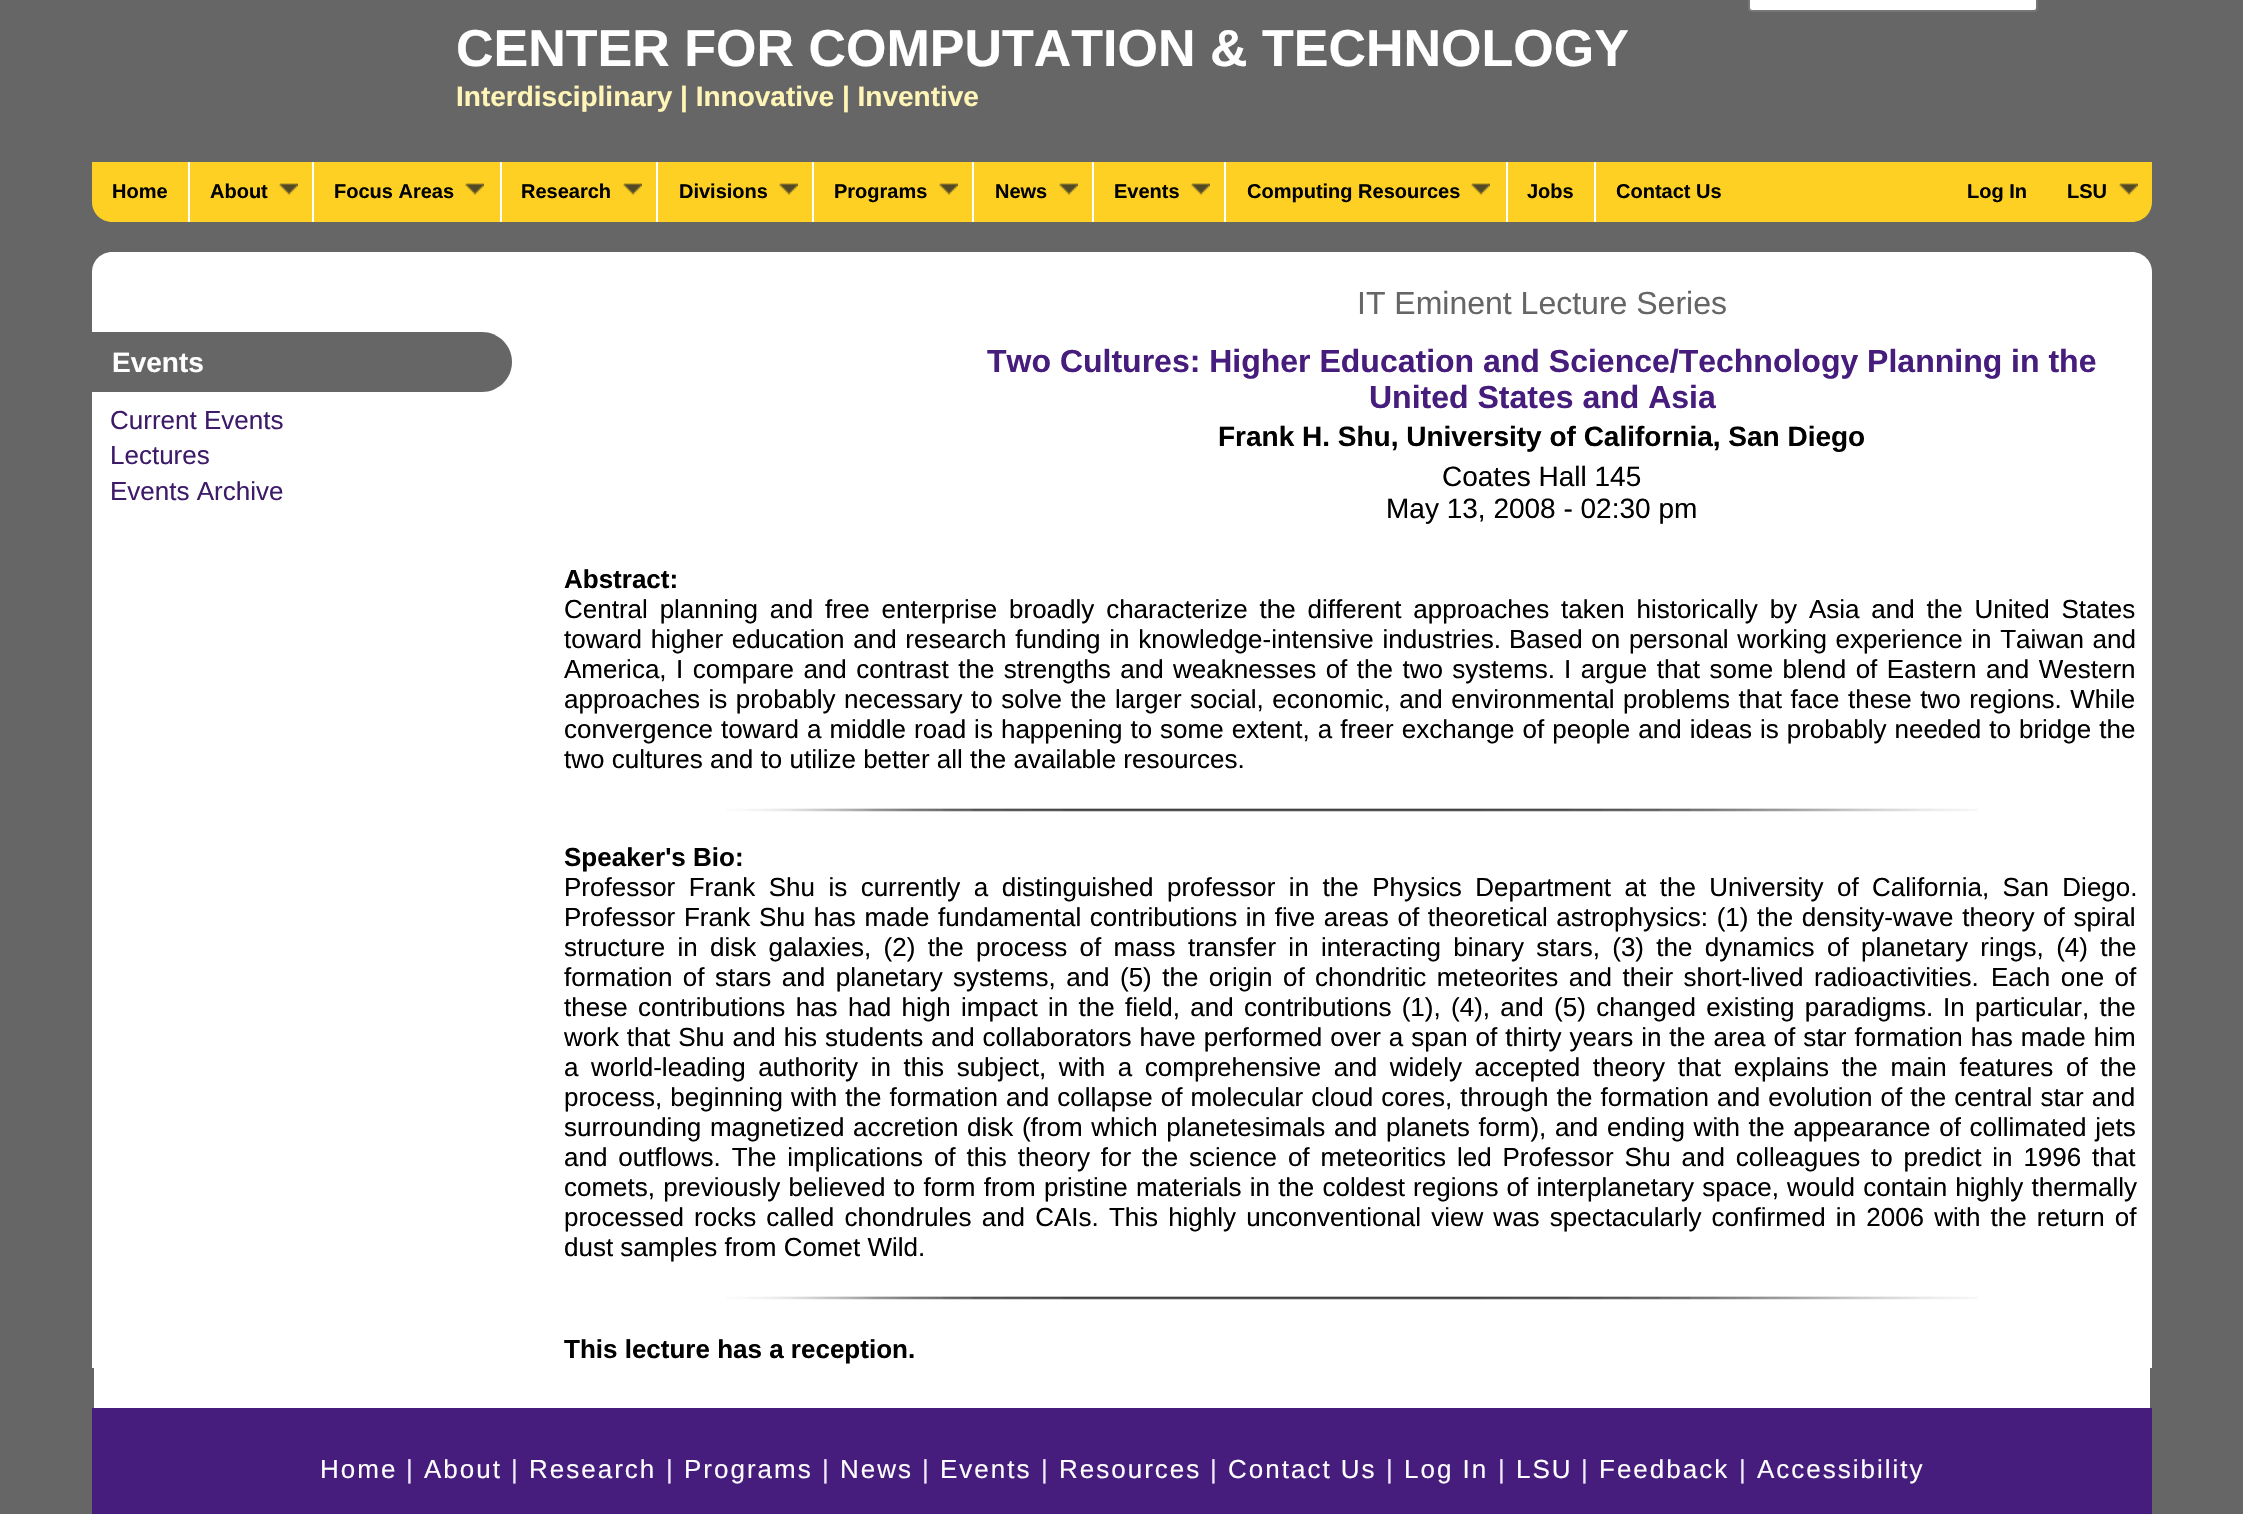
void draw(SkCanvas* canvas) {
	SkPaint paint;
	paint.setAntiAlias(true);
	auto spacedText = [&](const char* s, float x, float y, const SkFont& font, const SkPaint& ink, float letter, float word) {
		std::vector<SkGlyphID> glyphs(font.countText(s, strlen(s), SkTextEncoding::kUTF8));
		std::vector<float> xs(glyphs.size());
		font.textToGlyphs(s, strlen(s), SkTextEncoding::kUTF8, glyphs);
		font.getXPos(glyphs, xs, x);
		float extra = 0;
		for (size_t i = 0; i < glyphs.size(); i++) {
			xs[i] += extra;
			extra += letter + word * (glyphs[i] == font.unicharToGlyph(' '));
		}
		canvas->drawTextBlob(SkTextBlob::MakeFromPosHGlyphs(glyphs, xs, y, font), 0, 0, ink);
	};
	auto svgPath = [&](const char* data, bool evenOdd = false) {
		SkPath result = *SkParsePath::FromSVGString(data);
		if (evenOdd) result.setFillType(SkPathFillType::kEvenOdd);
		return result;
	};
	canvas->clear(0xff666666);
	paint.setColor(0xffffffff);
	canvas->drawRoundRect(SkRect::MakeXYWH(1749, -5, 288, 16), 3, 3, paint);
	paint.setStroke(true);
	paint.setStrokeWidth(2);
	paint.setColor(0xff767676);
	canvas->drawRoundRect(SkRect::MakeXYWH(1749, -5, 288, 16), 3, 3, paint);
	SkFont f1(fontMgr->matchFamilyStyle("Liberation Sans", SkFontStyle::Bold()), 52);
	f1.setSubpixel(true);
	paint.setStroke(false);
	paint.setColor(0xffffffff);
	canvas->drawString("CENTER FOR COMPUTATION & TECHNOLOGY", 456, 66, f1, paint);
	SkFont f2(fontMgr->matchFamilyStyle("Liberation Sans", SkFontStyle::Bold()), 28);
	f2.setSubpixel(true);
	paint.setColor(0xfffff5b7);
	canvas->drawString("Interdisciplinary | Innovative | Inventive", 456, 106, f2, paint);
	paint.setColor(0xfffdd023);
	canvas->drawPath(svgPath("M92 162H2152V202C2152 213 2143 222 2132 222H112C101 222 92 213 92 202Z"), paint);
	SkFont f3(fontMgr->matchFamilyStyle("Liberation Sans", SkFontStyle::Bold()), 20);
	f3.setSubpixel(true);
	paint.setColor(0xff000000);
	canvas->drawString("Home", 112, 198, f3, paint);
	paint.setColor(0xffffffff);
	canvas->drawRect(SkRect::MakeXYWH(188, 162, 2, 60), paint);
	paint.setColor(0xff000000);
	canvas->drawString("About", 210, 198, f3, paint);
	canvas->drawImageRect(SkImages::DeferredFromEncodedData(SkData::MakeFromFileName("img1.png")), SkRect::MakeXYWH(279, 183, 19, 12), SkSamplingOptions());
	paint.setColor(0xffffffff);
	canvas->drawRect(SkRect::MakeXYWH(312, 162, 2, 60), paint);
	paint.setColor(0xff000000);
	canvas->drawString("Focus Areas", 334, 198, f3, paint);
	canvas->drawImageRect(SkImages::DeferredFromEncodedData(SkData::MakeFromFileName("img1.png")), SkRect::MakeXYWH(465, 183, 19, 12), SkSamplingOptions());
	paint.setColor(0xffffffff);
	canvas->drawRect(SkRect::MakeXYWH(500, 162, 2, 60), paint);
	paint.setColor(0xff000000);
	canvas->drawString("Research", 521, 198, f3, paint);
	canvas->drawImageRect(SkImages::DeferredFromEncodedData(SkData::MakeFromFileName("img1.png")), SkRect::MakeXYWH(623, 183, 19, 12), SkSamplingOptions());
	paint.setColor(0xffffffff);
	canvas->drawRect(SkRect::MakeXYWH(656, 162, 2, 60), paint);
	paint.setColor(0xff000000);
	canvas->drawString("Divisions", 679, 198, f3, paint);
	canvas->drawImageRect(SkImages::DeferredFromEncodedData(SkData::MakeFromFileName("img1.png")), SkRect::MakeXYWH(779, 183, 19, 12), SkSamplingOptions());
	paint.setColor(0xffffffff);
	canvas->drawRect(SkRect::MakeXYWH(812, 162, 2, 60), paint);
	paint.setColor(0xff000000);
	canvas->drawString("Programs", 834, 198, f3, paint);
	canvas->drawImageRect(SkImages::DeferredFromEncodedData(SkData::MakeFromFileName("img1.png")), SkRect::MakeXYWH(939, 183, 19, 12), SkSamplingOptions());
	paint.setColor(0xffffffff);
	canvas->drawRect(SkRect::MakeXYWH(972, 162, 2, 60), paint);
	paint.setColor(0xff000000);
	canvas->drawString("News", 995, 198, f3, paint);
	canvas->drawImageRect(SkImages::DeferredFromEncodedData(SkData::MakeFromFileName("img1.png")), SkRect::MakeXYWH(1059, 183, 19, 12), SkSamplingOptions());
	paint.setColor(0xffffffff);
	canvas->drawRect(SkRect::MakeXYWH(1092, 162, 2, 60), paint);
	paint.setColor(0xff000000);
	canvas->drawString("Events", 1114, 198, f3, paint);
	canvas->drawImageRect(SkImages::DeferredFromEncodedData(SkData::MakeFromFileName("img1.png")), SkRect::MakeXYWH(1191, 183, 19, 12), SkSamplingOptions());
	paint.setColor(0xffffffff);
	canvas->drawRect(SkRect::MakeXYWH(1224, 162, 2, 60), paint);
	paint.setColor(0xff000000);
	canvas->drawString("Computing Resources", 1247, 198, f3, paint);
	canvas->drawImageRect(SkImages::DeferredFromEncodedData(SkData::MakeFromFileName("img1.png")), SkRect::MakeXYWH(1471, 183, 19, 12), SkSamplingOptions());
	paint.setColor(0xffffffff);
	canvas->drawRect(SkRect::MakeXYWH(1506, 162, 2, 60), paint);
	paint.setColor(0xff000000);
	canvas->drawString("Jobs", 1527, 198, f3, paint);
	paint.setColor(0xffffffff);
	canvas->drawRect(SkRect::MakeXYWH(1594, 162, 2, 60), paint);
	paint.setColor(0xff000000);
	canvas->drawString("Contact Us", 1616, 198, f3, paint);
	canvas->drawString("Log In", 1967, 198, f3, paint);
	canvas->drawString("LSU", 2067, 198, f3, paint);
	canvas->drawImageRect(SkImages::DeferredFromEncodedData(SkData::MakeFromFileName("img1.png")), SkRect::MakeXYWH(2119, 183, 19, 12), SkSamplingOptions());
	paint.setColor(0xffffffff);
	canvas->drawPath(svgPath("M112 252H2132C2143 252 2152 261 2152 272V1368H92V272C92 261 101 252 112 252Z"), paint);
	paint.setColor(0xff666666);
	canvas->drawPath(svgPath("M82 332H482C498.5 332 512 345.5 512 362C512 378.5 498.5 392 482 392H82Z"), paint);
	paint.setColor(0xffffffff);
	canvas->drawString("Events", 112, 372, f2, paint);
	SkFont f4(fontMgr->matchFamilyStyle("Liberation Sans", SkFontStyle::Normal()), 26);
	f4.setSubpixel(true);
	paint.setColor(0xff3d1b69);
	canvas->drawString("Current Events", 110, 429, f4, paint);
	canvas->drawString("Lectures", 110, 464, f4, paint);
	canvas->drawString("Events Archive", 110, 500, f4, paint);
	SkFont f5(fontMgr->matchFamilyStyle("Liberation Sans", SkFontStyle::Normal()), 32);
	f5.setSubpixel(true);
	paint.setColor(0xff666666);
	canvas->drawString("IT Eminent Lecture Series", 1357, 314, f5, paint);
	SkFont f6(fontMgr->matchFamilyStyle("Liberation Sans", SkFontStyle::Bold()), 32);
	f6.setSubpixel(true);
	paint.setColor(0xff461d7c);
	canvas->drawString("Two Cultures: Higher Education and Science/Technology Planning in the", 987, 372, f6, paint);
	canvas->drawString("United States and Asia", 1369, 408, f6, paint);
	paint.setColor(0xff000000);
	canvas->drawString("Frank H. Shu, University of California, San Diego", 1218, 446, f2, paint);
	SkFont f7(fontMgr->matchFamilyStyle("Liberation Sans", SkFontStyle::Normal()), 28);
	f7.setSubpixel(true);
	canvas->drawString("Coates Hall 145", 1442, 486, f7, paint);
	canvas->drawString("May 13, 2008 - 02:30 pm", 1386, 518, f7, paint);
	SkFont f8(fontMgr->matchFamilyStyle("Liberation Sans", SkFontStyle::Bold()), 26);
	f8.setSubpixel(true);
	canvas->drawString("Abstract:", 564, 588, f8, paint);
	spacedText("Central planning and free enterprise broadly characterize the different approaches taken historically by Asia and the United States", 564, 618, f4, paint, 0, 4.6);
	spacedText("toward higher education and research funding in knowledge-intensive industries.", 564, 648, f4, paint, 0, 1.5);
	spacedText("Based on personal working experience in Taiwan and", 1509, 648, f4, paint, 0, 1.4);
	spacedText("America, I compare and contrast the strengths and weaknesses of the two systems.", 564, 678, f4, paint, 0, 2.25);
	spacedText("I argue that some blend of Eastern and Western", 1564, 678, f4, paint, 0, 2.25);
	spacedText("approaches is probably necessary to solve the larger social, economic, and environmental problems that face these two regions. While", 564, 708, f4, paint, 0, 1.3);
	spacedText("convergence toward a middle road is happening to some extent, a freer exchange of people and ideas is probably needed to bridge the", 564, 738, f4, paint, 0, 0.8);
	canvas->drawString("two cultures and to utilize better all the available resources.", 564, 768, f4, paint);
	canvas->drawImageRect(SkImages::DeferredFromEncodedData(SkData::MakeFromFileName("img2.png")), SkRect::MakeXYWH(726, 808, 1252, 4), SkSamplingOptions());
	canvas->drawString("Speaker's Bio:", 564, 866, f8, paint);
	spacedText("Professor Frank Shu is currently a distinguished professor in the Physics Department at the University of California, San Diego.", 564, 896, f4, paint, 0, 6.25);
	spacedText("Professor Frank Shu has made fundamental contributions in five areas of theoretical astrophysics: (1) the density-wave theory of spiral", 564, 926, f4, paint, 0, 1.4);
	spacedText("structure in disk galaxies, (2) the process of mass transfer in interacting binary stars, (3) the dynamics of planetary rings, (4) the", 564, 956, f4, paint, 0, 5.1);
	spacedText("formation of stars and planetary systems, and (5) the origin of chondritic meteorites and their short-lived radioactivities.", 564, 986, f4, paint, 0, 3.25);
	spacedText("Each one of", 1991, 986, f4, paint, 0, 3.25);
	spacedText("these contributions has had high impact in the field, and contributions (1), (4), and (5) changed existing paradigms.", 564, 1016, f4, paint, 0, 3.1);
	spacedText("In particular, the", 1943, 1016, f4, paint, 0, 3.1);
	spacedText("work that Shu and his students and collaborators have performed over a span of thirty years in the area of star formation has made him", 564, 1046, f4, paint, 0, 0.75);
	spacedText("a world-leading authority in this subject, with a comprehensive and widely accepted theory that explains the main features of the", 564, 1076, f4, paint, 0, 5.4);
	spacedText("process, beginning with the formation and collapse of molecular cloud cores, through the formation and evolution of the central star and", 564, 1106, f4, paint, 0, 0.8);
	spacedText("surrounding magnetized accretion disk (from which planetesimals and planets form), and ending with the appearance of collimated jets", 564, 1136, f4, paint, 0, 1.4);
	spacedText("and outflows. The implications of this theory for the science of meteoritics led Professor Shu and colleagues to predict in 1996 that", 564, 1166, f4, paint, 0, 3.6);
	spacedText("comets, previously believed to form from pristine materials in the coldest regions of interplanetary space, would contain highly thermally", 564, 1196, f4, paint, 0, 1);
	spacedText("processed rocks called chondrules and CAIs. This highly unconventional view was spectacularly confirmed in 2006 with the return of", 564, 1226, f4, paint, 0, 2.9);
	canvas->drawString("dust samples from Comet Wild.", 564, 1256, f4, paint);
	canvas->drawImageRect(SkImages::DeferredFromEncodedData(SkData::MakeFromFileName("img2.png")), SkRect::MakeXYWH(726, 1296, 1252, 4), SkSamplingOptions());
	canvas->drawString("This lecture has a reception.", 564, 1358, f8, paint);
	paint.setColor(0xff461d7c);
	canvas->drawRect(SkRect::MakeXYWH(92, 1408, 2060, 106), paint);
	paint.setColor(0xffffffff);
	spacedText("Home", 320, 1478, f4, paint, 2, 0);
	paint.setColor(0xfff1eafe);
	spacedText("|", 406, 1478, f4, paint, 2, 0);
	paint.setColor(0xffffffff);
	spacedText("About", 424, 1478, f4, paint, 2, 0);
	paint.setColor(0xfff1eafe);
	spacedText("|", 511, 1478, f4, paint, 2, 0);
	paint.setColor(0xffffffff);
	spacedText("Research", 529, 1478, f4, paint, 2, 0);
	paint.setColor(0xfff1eafe);
	spacedText("|", 666, 1478, f4, paint, 2, 0);
	paint.setColor(0xffffffff);
	spacedText("Programs", 684, 1478, f4, paint, 2, 0);
	paint.setColor(0xfff1eafe);
	spacedText("|", 822, 1478, f4, paint, 2, 0);
	paint.setColor(0xffffffff);
	spacedText("News", 840, 1478, f4, paint, 2, 0);
	paint.setColor(0xfff1eafe);
	spacedText("|", 922, 1478, f4, paint, 2, 0);
	paint.setColor(0xffffffff);
	spacedText("Events", 940, 1478, f4, paint, 2, 0);
	paint.setColor(0xfff1eafe);
	spacedText("|", 1041, 1478, f4, paint, 2, 0);
	paint.setColor(0xffffffff);
	spacedText("Resources", 1059, 1478, f4, paint, 2, 0);
	paint.setColor(0xfff1eafe);
	spacedText("|", 1210, 1478, f4, paint, 2, 0);
	paint.setColor(0xffffffff);
	spacedText("Contact Us", 1228, 1478, f4, paint, 2, 0);
	paint.setColor(0xfff1eafe);
	spacedText("|", 1386, 1478, f4, paint, 2, 0);
	paint.setColor(0xffffffff);
	spacedText("Log In", 1404, 1478, f4, paint, 2, 0);
	paint.setColor(0xfff1eafe);
	spacedText("|", 1498, 1478, f4, paint, 2, 0);
	paint.setColor(0xffffffff);
	spacedText("LSU", 1516, 1478, f4, paint, 2, 0);
	paint.setColor(0xfff1eafe);
	spacedText("|", 1581, 1478, f4, paint, 2, 0);
	paint.setColor(0xffffffff);
	spacedText("Feedback", 1599, 1478, f4, paint, 2, 0);
	paint.setColor(0xfff1eafe);
	spacedText("|", 1739, 1478, f4, paint, 2, 0);
	paint.setColor(0xffffffff);
	spacedText("Accessibility", 1757, 1478, f4, paint, 2, 0);
	canvas->drawRect(SkRect::MakeXYWH(94, 1368, 2056, 40), paint);
}
